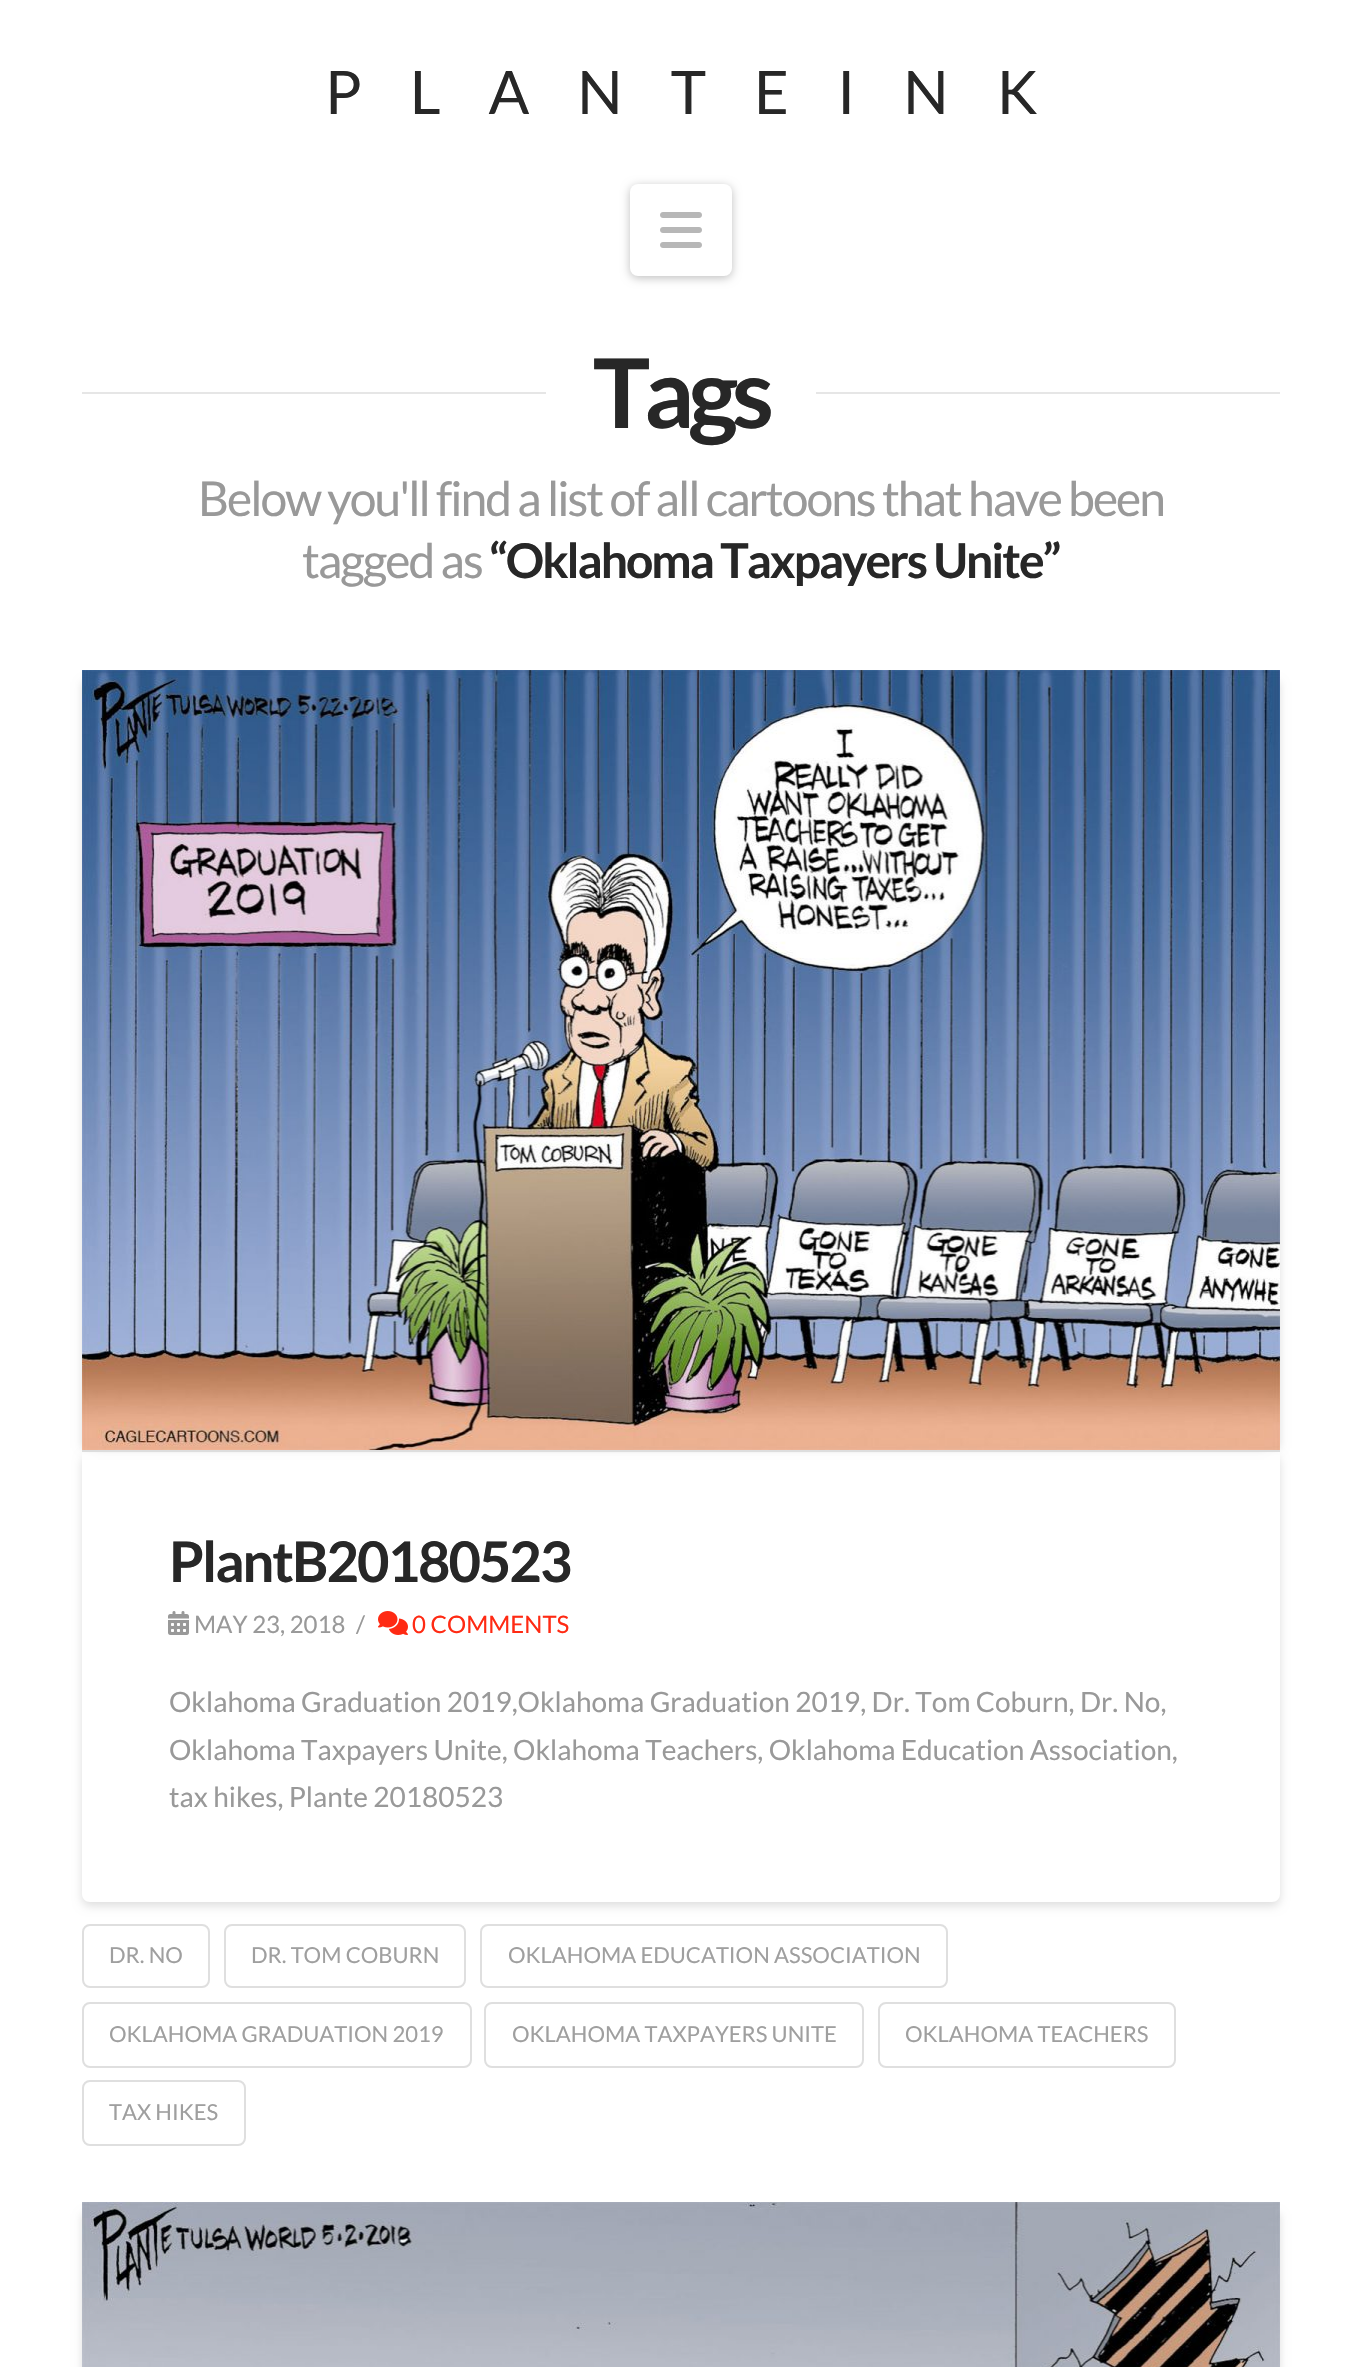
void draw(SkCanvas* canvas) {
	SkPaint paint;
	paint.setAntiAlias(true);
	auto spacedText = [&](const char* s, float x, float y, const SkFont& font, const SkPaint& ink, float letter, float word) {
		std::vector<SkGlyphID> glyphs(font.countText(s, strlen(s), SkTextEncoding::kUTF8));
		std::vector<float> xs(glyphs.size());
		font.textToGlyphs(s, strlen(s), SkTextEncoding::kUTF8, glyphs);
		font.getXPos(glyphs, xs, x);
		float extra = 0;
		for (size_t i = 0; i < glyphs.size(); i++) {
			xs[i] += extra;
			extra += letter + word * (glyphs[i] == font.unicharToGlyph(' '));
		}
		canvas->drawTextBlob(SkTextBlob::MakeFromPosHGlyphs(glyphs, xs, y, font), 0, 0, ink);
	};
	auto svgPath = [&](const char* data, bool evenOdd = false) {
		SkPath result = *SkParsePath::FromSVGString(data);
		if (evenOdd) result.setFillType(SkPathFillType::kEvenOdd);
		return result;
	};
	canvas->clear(0xffffffff);
	SkFont f1(fontMgr->matchFamilyStyle("Lato", SkFontStyle::Normal()), 60);
	f1.setSubpixel(true);
	paint.setColor(0xff272727);
	spacedText("PLANTEINK", 325, 114, f1, paint, 48, 0);
	paint.setColor(0x40000000);
	paint.setMaskFilter(SkMaskFilter::MakeBlur(kNormal_SkBlurStyle, 5));
	canvas->drawRoundRect(SkRect::MakeXYWH(630, 186, 102, 92), 8, 8, paint);
	paint.setMaskFilter(nullptr);
	paint.setColor(0xffffffff);
	canvas->drawRoundRect(SkRect::MakeXYWH(630, 184, 102, 92), 8, 8, paint);
	canvas->drawImageRect(SkImages::DeferredFromEncodedData(SkData::MakeFromFileName("img1.png")), SkRect::MakeXYWH(660, 212, 42, 36), SkSamplingOptions());
	paint.setColor(0xffe6e6e6);
	canvas->drawRect(SkRect::MakeXYWH(82, 392, 464, 2), paint);
	SkFont f2(fontMgr->matchFamilyStyle("Lato", SkFontStyle::Bold()), 96);
	f2.setSubpixel(true);
	paint.setColor(0xff272727);
	spacedText("Tags", 593, 428, f2, paint, -6, 0);
	paint.setColor(0xffe6e6e6);
	canvas->drawRect(SkRect::MakeXYWH(816, 392, 464, 2), paint);
	SkFont f3(fontMgr->matchFamilyStyle("Lato", SkFontStyle::Normal()), 48);
	f3.setSubpixel(true);
	paint.setColor(0xff999999);
	spacedText("Below you'll find a list of all cartoons that have been", 198, 516, f3, paint, -2, 0);
	spacedText("tagged as", 302, 578, f3, paint, -2, 0);
	SkFont f4(fontMgr->matchFamilyStyle("Lato", SkFontStyle::Bold()), 48);
	f4.setSubpixel(true);
	paint.setColor(0xff272727);
	spacedText("“Oklahoma Taxpayers Unite”", 489, 578, f4, paint, -2, 0);
	paint.setColor(0x21000000);
	paint.setMaskFilter(SkMaskFilter::MakeBlur(kNormal_SkBlurStyle, 5));
	canvas->drawRoundRect(SkRect::MakeXYWH(82, 1456, 1198, 450), 8, 8, paint);
	paint.setMaskFilter(nullptr);
	paint.setColor(0xffffffff);
	canvas->drawPath(svgPath("M82 1452H1280V1894C1280 1898.5 1276.5 1902 1272 1902H90C85.5 1902 82 1898.5 82 1894Z"), paint);
	paint.setColor(0x21000000);
	paint.setMaskFilter(SkMaskFilter::MakeBlur(kNormal_SkBlurStyle, 4));
	canvas->drawRect(SkRect::MakeXYWH(82, 682, 1182, 766), paint);
	paint.setMaskFilter(nullptr);
	paint.setMaskFilter(SkMaskFilter::MakeBlur(kNormal_SkBlurStyle, 4));
	canvas->drawRect(SkRect::MakeXYWH(98, 682, 1182, 766), paint);
	paint.setMaskFilter(nullptr);
	paint.setColor(0xffdddddd);
	canvas->drawRect(SkRect::MakeXYWH(82, 1450, 1198, 2), paint);
	canvas->drawImageRect(SkImages::DeferredFromEncodedData(SkData::MakeFromFileName("img2.png")), SkRect::MakeXYWH(82, 670, 1198, 780), SkSamplingOptions());
	SkFont f5(fontMgr->matchFamilyStyle("Lato", SkFontStyle::Bold()), 56);
	f5.setSubpixel(true);
	paint.setColor(0xff272727);
	spacedText("PlantB20180523", 169, 1582, f5, paint, -2, 0);
	canvas->drawImageRect(SkImages::DeferredFromEncodedData(SkData::MakeFromFileName("img3.png")), SkRect::MakeXYWH(168, 1611, 21, 24), SkSamplingOptions());
	SkFont f6(fontMgr->matchFamilyStyle("Lato", SkFontStyle::Normal()), 24);
	f6.setSubpixel(true);
	paint.setColor(0xff999999);
	canvas->drawString("MAY 23, 2018", 194, 1633, f6, paint);
	canvas->drawString("/", 356, 1633, f6, paint);
	canvas->drawImageRect(SkImages::DeferredFromEncodedData(SkData::MakeFromFileName("img4.png")), SkRect::MakeXYWH(378, 1611, 30, 24), SkSamplingOptions());
	paint.setColor(0xffff2a13);
	canvas->drawString("0 COMMENTS", 412, 1633, f6, paint);
	SkFont f7(fontMgr->matchFamilyStyle("Lato", SkFontStyle::Normal()), 28);
	f7.setSubpixel(true);
	paint.setColor(0xff999999);
	canvas->drawString("Oklahoma Graduation 2019,Oklahoma Graduation 2019, Dr. Tom Coburn, Dr. No,", 169, 1712, f7, paint);
	canvas->drawString("Oklahoma Taxpayers Unite, Oklahoma Teachers, Oklahoma Education Association,", 169, 1760, f7, paint);
	canvas->drawString("tax hikes, Plante 20180523", 169, 1807, f7, paint);
	paint.setStroke(true);
	paint.setStrokeWidth(2);
	paint.setColor(0xffdfdfdf);
	canvas->drawRoundRect(SkRect::MakeXYWH(83, 1925, 126, 62), 7, 7, paint);
	SkFont f8(fontMgr->matchFamilyStyle("Lato", SkFontStyle::Normal()), 22);
	f8.setSubpixel(true);
	paint.setStroke(false);
	paint.setColor(0xff9f9f9f);
	canvas->drawString("DR. NO", 109, 1963, f8, paint);
	paint.setStroke(true);
	paint.setColor(0xffdfdfdf);
	canvas->drawRoundRect(SkRect::MakeXYWH(225, 1925, 240, 62), 7, 7, paint);
	paint.setStroke(false);
	paint.setColor(0xff9f9f9f);
	canvas->drawString("DR. TOM COBURN", 251, 1963, f8, paint);
	paint.setStroke(true);
	paint.setColor(0xffdfdfdf);
	canvas->drawRoundRect(SkRect::MakeXYWH(481, 1925, 466, 62), 7, 7, paint);
	paint.setStroke(false);
	paint.setColor(0xff9f9f9f);
	canvas->drawString("OKLAHOMA EDUCATION ASSOCIATION", 508, 1963, f8, paint);
	paint.setStroke(true);
	paint.setColor(0xffdfdfdf);
	canvas->drawRoundRect(SkRect::MakeXYWH(83, 2003, 388, 64), 7, 7, paint);
	paint.setStroke(false);
	paint.setColor(0xff9f9f9f);
	canvas->drawString("OKLAHOMA GRADUATION 2019", 109, 2042, f8, paint);
	paint.setStroke(true);
	paint.setColor(0xffdfdfdf);
	canvas->drawRoundRect(SkRect::MakeXYWH(485, 2003, 378, 64), 7, 7, paint);
	paint.setStroke(false);
	paint.setColor(0xff9f9f9f);
	canvas->drawString("OKLAHOMA TAXPAYERS UNITE", 512, 2042, f8, paint);
	paint.setStroke(true);
	paint.setColor(0xffdfdfdf);
	canvas->drawRoundRect(SkRect::MakeXYWH(879, 2003, 296, 64), 7, 7, paint);
	paint.setStroke(false);
	paint.setColor(0xff9f9f9f);
	canvas->drawString("OKLAHOMA TEACHERS", 905, 2042, f8, paint);
	paint.setStroke(true);
	paint.setColor(0xffdfdfdf);
	canvas->drawRoundRect(SkRect::MakeXYWH(83, 2081, 162, 64), 7, 7, paint);
	paint.setStroke(false);
	paint.setColor(0xff9f9f9f);
	canvas->drawString("TAX HIKES", 109, 2120, f8, paint);
	paint.setColor(0x21000000);
	paint.setMaskFilter(SkMaskFilter::MakeBlur(kNormal_SkBlurStyle, 4));
	canvas->drawRect(SkRect::MakeXYWH(82, 2214, 1182, 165), paint);
	paint.setMaskFilter(nullptr);
	paint.setMaskFilter(SkMaskFilter::MakeBlur(kNormal_SkBlurStyle, 4));
	canvas->drawRect(SkRect::MakeXYWH(98, 2214, 1182, 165), paint);
	paint.setMaskFilter(nullptr);
	canvas->drawImageRect(SkImages::DeferredFromEncodedData(SkData::MakeFromFileName("img5.png")), SkRect::MakeXYWH(82, 2202, 1198, 165), SkSamplingOptions());
}
